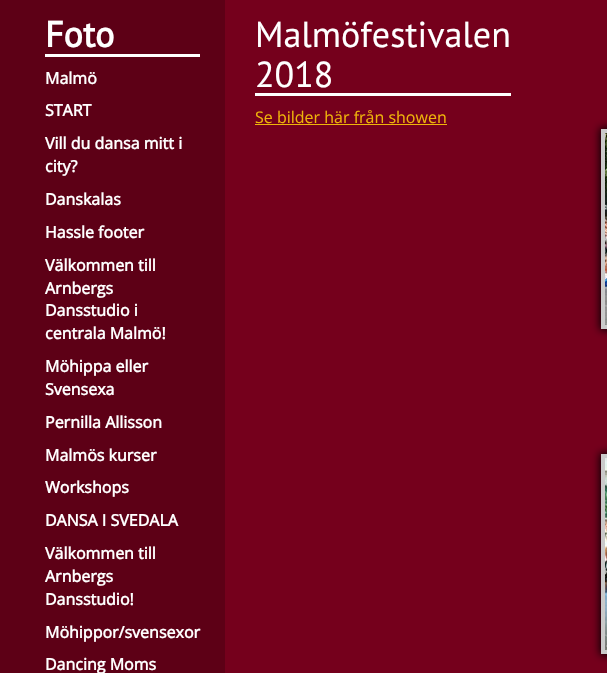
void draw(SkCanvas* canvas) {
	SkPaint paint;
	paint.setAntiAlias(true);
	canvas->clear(0xff5d0016);
	paint.setColor(0xffffffff);
	canvas->drawRect(SkRect::MakeXYWH(45, 54, 155, 3), paint);
	SkFont f1(fontMgr->matchFamilyStyle("PT Sans", SkFontStyle::Bold()), 36);
	f1.setSubpixel(true);
	canvas->drawString("Foto", 45, 47, f1, paint);
	SkFont f2(fontMgr->matchFamilyStyle("Open Sans", SkFontStyle::Bold()), 16);
	f2.setSubpixel(true);
	canvas->drawString("Malmö", 45, 84, f2, paint);
	canvas->drawString("START", 45, 116, f2, paint);
	canvas->drawString("Vill du dansa mitt i", 45, 149, f2, paint);
	canvas->drawString("city?", 45, 172, f2, paint);
	canvas->drawString("Danskalas", 45, 205, f2, paint);
	canvas->drawString("Hassle footer", 45, 238, f2, paint);
	canvas->drawString("Välkommen till", 45, 271, f2, paint);
	canvas->drawString("Arnbergs", 45, 294, f2, paint);
	canvas->drawString("Dansstudio i", 45, 316, f2, paint);
	canvas->drawString("centrala Malmö!", 45, 339, f2, paint);
	canvas->drawString("Möhippa eller", 45, 372, f2, paint);
	canvas->drawString("Svensexa", 45, 395, f2, paint);
	canvas->drawString("Pernilla Allisson", 45, 428, f2, paint);
	canvas->drawString("Malmös kurser", 45, 461, f2, paint);
	canvas->drawString("Workshops", 45, 493, f2, paint);
	canvas->drawString("DANSA I SVEDALA", 45, 526, f2, paint);
	canvas->drawString("Välkommen till", 45, 559, f2, paint);
	canvas->drawString("Arnbergs", 45, 582, f2, paint);
	canvas->drawString("Dansstudio!", 45, 605, f2, paint);
	canvas->drawString("Möhippor/svensexor", 45, 638, f2, paint);
	canvas->drawString("Dancing Moms", 45, 670, f2, paint);
	paint.setColor(0xff75001c);
	canvas->drawRect(SkRect::MakeXYWH(225, 0, 382, 673), paint);
	paint.setColor(0xffffffff);
	canvas->drawRect(SkRect::MakeXYWH(255, 93, 256, 3), paint);
	SkFont f3(fontMgr->matchFamilyStyle("PT Sans", SkFontStyle::Normal()), 36);
	f3.setSubpixel(true);
	canvas->drawString("Malmöfestivalen", 255, 47, f3, paint);
	canvas->drawString("2018", 255, 87, f3, paint);
	SkFont f4(fontMgr->matchFamilyStyle("Open Sans", SkFontStyle::Normal()), 16);
	f4.setSubpixel(true);
	paint.setColor(0xffefb50a);
	canvas->drawString("Se bilder här från showen", 255, 123, f4, paint);
	canvas->drawRect(SkRect::MakeXYWH(255, 124, 192, 1), paint);
	paint.setColor(0xff000000);
	paint.setMaskFilter(SkMaskFilter::MakeBlur(kNormal_SkBlurStyle, 4));
	canvas->drawRect(SkRect::MakeXYWH(600, 128, 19, 202), paint);
	paint.setMaskFilter(nullptr);
	canvas->drawImageRect(SkImages::DeferredFromEncodedData(SkData::MakeFromFileName("img1.png")), SkRect::MakeXYWH(605, 133, 2, 192), SkSamplingOptions());
	paint.setStroke(true);
	paint.setStrokeWidth(4);
	paint.setColor(0xffcacaca);
	canvas->drawRect(SkRect::MakeXYWH(603, 131, 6, 196), paint);
	paint.setStroke(false);
	paint.setColor(0xff000000);
	paint.setMaskFilter(SkMaskFilter::MakeBlur(kNormal_SkBlurStyle, 4));
	canvas->drawRect(SkRect::MakeXYWH(600, 453, 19, 202), paint);
	paint.setMaskFilter(nullptr);
	canvas->drawImageRect(SkImages::DeferredFromEncodedData(SkData::MakeFromFileName("img2.png")), SkRect::MakeXYWH(605, 458, 2, 192), SkSamplingOptions());
	paint.setStroke(true);
	paint.setColor(0xffcacaca);
	canvas->drawRect(SkRect::MakeXYWH(603, 456, 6, 196), paint);
}
